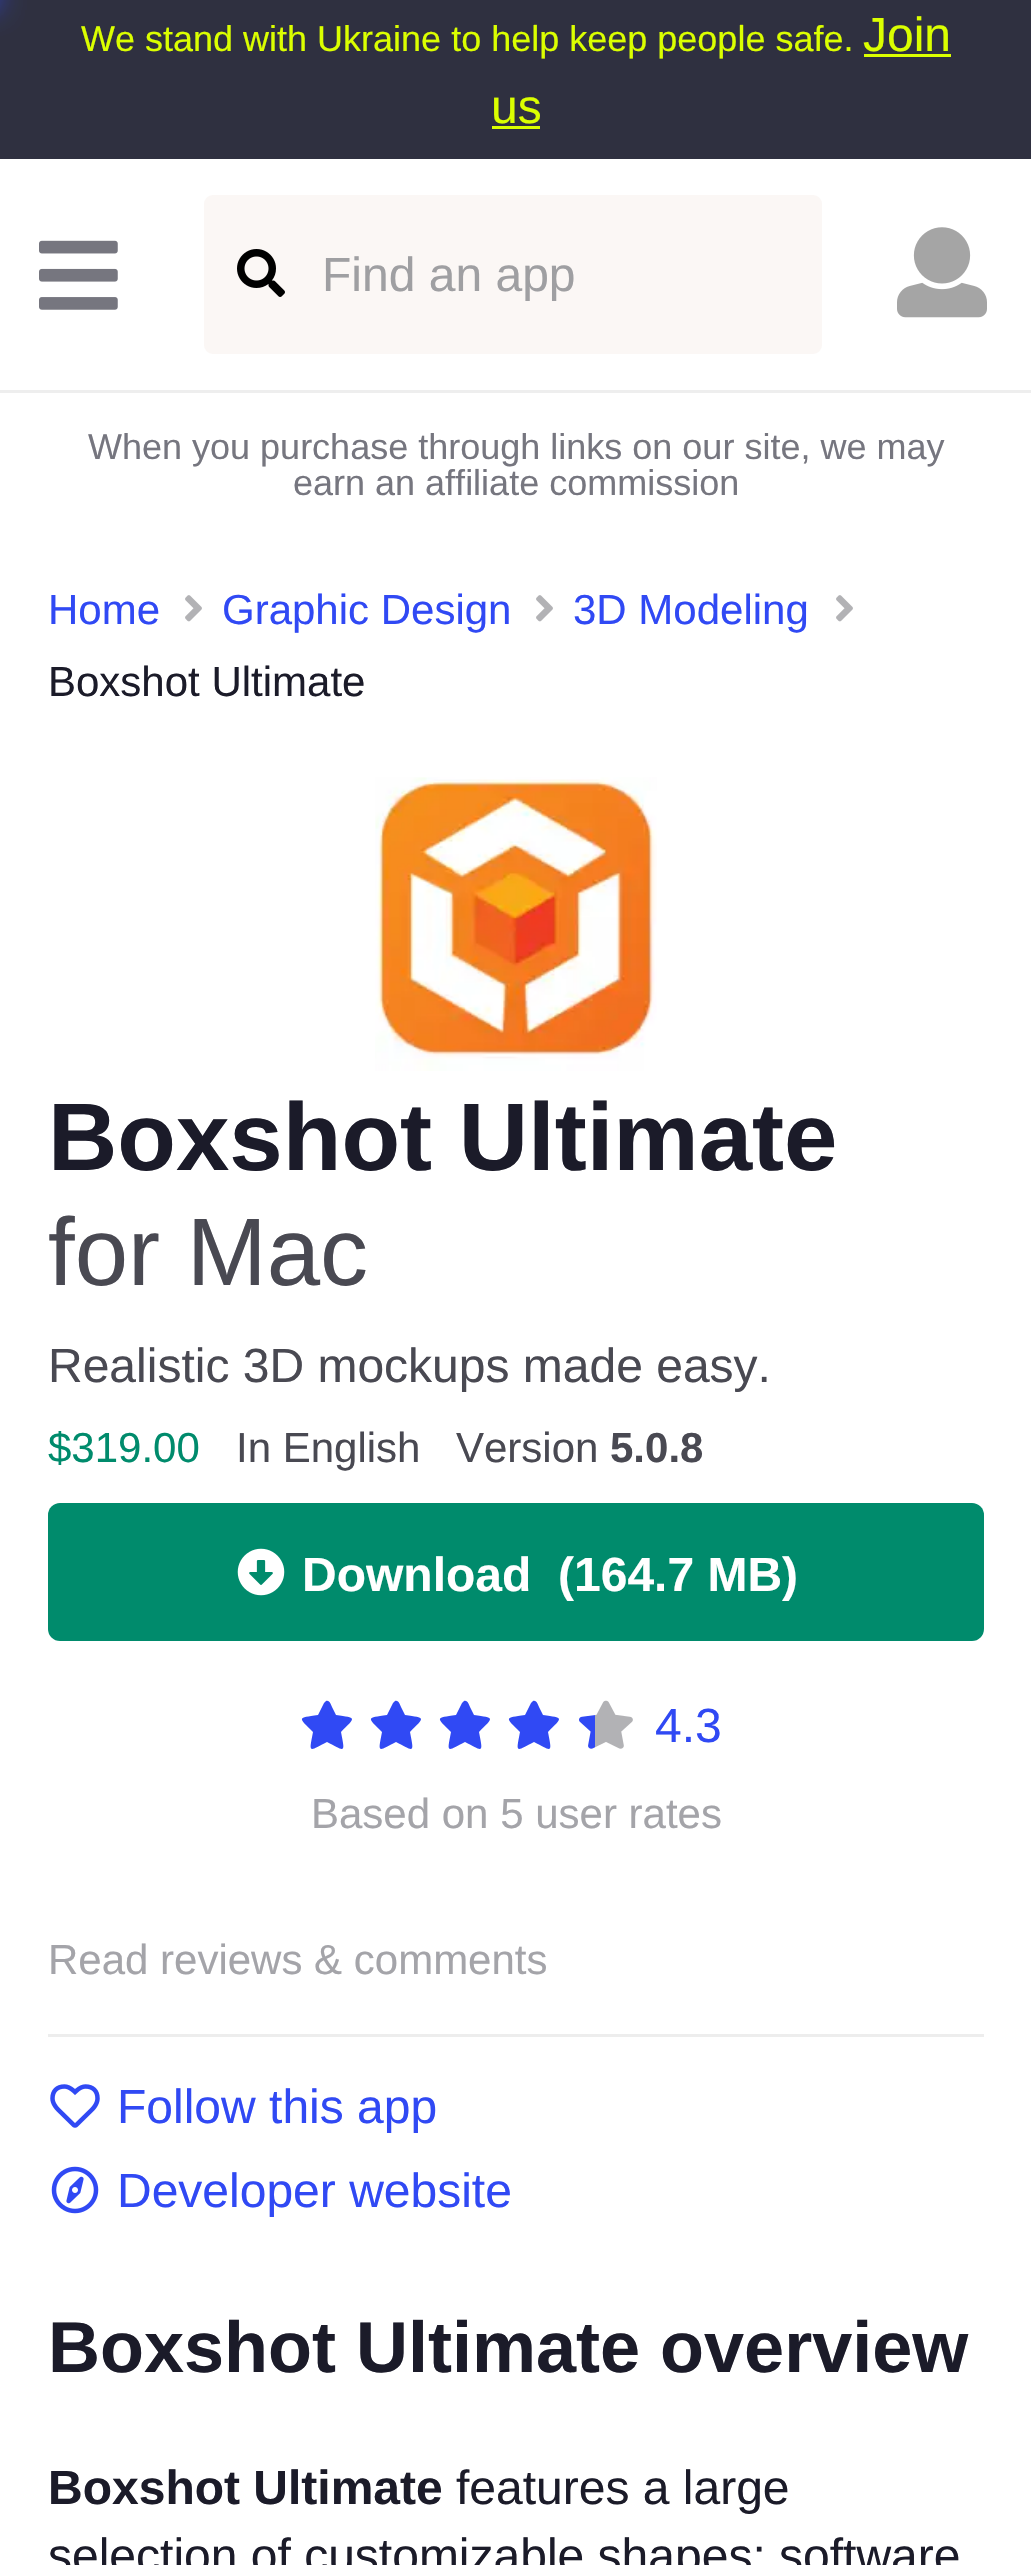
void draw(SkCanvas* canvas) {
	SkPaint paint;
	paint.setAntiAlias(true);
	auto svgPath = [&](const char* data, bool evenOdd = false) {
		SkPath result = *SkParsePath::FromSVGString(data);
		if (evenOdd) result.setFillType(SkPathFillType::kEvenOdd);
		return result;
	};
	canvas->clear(0xffffffff);
	paint.setColor(0xff2f3040);
	canvas->drawRect(SkRect::MakeXYWH(0, 0, 1031, 159), paint);
	paint.setColor(0xff3049f4);
	paint.setMaskFilter(SkMaskFilter::MakeBlur(kNormal_SkBlurStyle, 15));
	canvas->drawRect(SkRect::MakeXYWH(-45, -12, 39, 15), paint);
	paint.setMaskFilter(nullptr);
	paint.setMaskFilter(SkMaskFilter::MakeBlur(kNormal_SkBlurStyle, 15));
	canvas->drawRect(SkRect::MakeXYWH(-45, -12, 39, 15), paint);
	paint.setMaskFilter(nullptr);
	SkFont f1(fontMgr->matchFamilyStyle("Liberation Sans", SkFontStyle::Normal()), 36);
	f1.setSubpixel(true);
	paint.setColor(0xffdbff00);
	canvas->drawString("We stand with Ukraine to help keep people safe.", 81, 51, f1, paint);
	SkFont f2(fontMgr->matchFamilyStyle("Liberation Sans", SkFontStyle::Normal()), 48);
	f2.setSubpixel(true);
	canvas->drawString("Join", 863, 51, f2, paint);
	canvas->drawRect(SkRect::MakeXYWH(864, 54, 87, 3), paint);
	canvas->drawString("us", 491, 123, f2, paint);
	canvas->drawRect(SkRect::MakeXYWH(492, 126, 48, 3), paint);
	paint.setColor(0xffeeeeee);
	canvas->drawRect(SkRect::MakeXYWH(0, 390, 1031, 3), paint);
	canvas->drawImageRect(SkImages::DeferredFromEncodedData(SkData::MakeFromFileName("img1.png")), SkRect::MakeXYWH(39, 240, 79, 70), SkSamplingOptions());
	paint.setColor(0xfffbf7f5);
	canvas->drawRoundRect(SkRect::MakeXYWH(202.5, 193.5, 621, 162), 10.5, 10.5, paint);
	paint.setStroke(true);
	paint.setStrokeWidth(3);
	paint.setColor(0xffffffff);
	canvas->drawRoundRect(SkRect::MakeXYWH(202.5, 193.5, 621, 162), 10.5, 10.5, paint);
	canvas->drawImageRect(SkImages::DeferredFromEncodedData(SkData::MakeFromFileName("img2.png")), SkRect::MakeXYWH(237, 249, 48, 48), SkSamplingOptions());
	paint.setStroke(false);
	paint.setColor(0xff9f9fa2);
	canvas->drawString("Find an app", 322, 291, f2, paint);
	canvas->drawImageRect(SkImages::DeferredFromEncodedData(SkData::MakeFromFileName("img3.png")), SkRect::MakeXYWH(897, 227, 90, 91), SkSamplingOptions());
	paint.setColor(0xff76767f);
	canvas->drawString("When you purchase through links on our site, we may", 88, 459, f1, paint);
	canvas->drawString("earn an affiliate commission", 293, 495, f1, paint);
	SkFont f3(fontMgr->matchFamilyStyle("Liberation Sans", SkFontStyle::Normal()), 42);
	f3.setSubpixel(true);
	paint.setColor(0xff3049f4);
	canvas->drawString("Home", 48, 624, f3, paint);
	canvas->drawImageRect(SkImages::DeferredFromEncodedData(SkData::MakeFromFileName("img4.png")), SkRect::MakeXYWH(185, 595, 17, 27), SkSamplingOptions());
	canvas->drawString("Graphic Design", 222, 624, f3, paint);
	canvas->drawImageRect(SkImages::DeferredFromEncodedData(SkData::MakeFromFileName("img4.png")), SkRect::MakeXYWH(536, 595, 17, 27), SkSamplingOptions());
	canvas->drawString("3D Modeling", 573, 624, f3, paint);
	canvas->drawImageRect(SkImages::DeferredFromEncodedData(SkData::MakeFromFileName("img4.png")), SkRect::MakeXYWH(836, 595, 17, 27), SkSamplingOptions());
	paint.setColor(0xff1b1b29);
	canvas->drawString("Boxshot Ultimate", 48, 696, f3, paint);
	canvas->drawImageRect(SkImages::DeferredFromEncodedData(SkData::MakeFromFileName("img5.png")), SkRect::MakeXYWH(375, 777, 282, 294), SkSamplingOptions());
	SkFont f4(fontMgr->matchFamilyStyle("Liberation Sans", SkFontStyle::Bold()), 96);
	f4.setSubpixel(true);
	canvas->drawString("Boxshot Ultimate", 48, 1170, f4, paint);
	SkFont f5(fontMgr->matchFamilyStyle("Liberation Sans", SkFontStyle::Normal()), 96);
	f5.setSubpixel(true);
	paint.setColor(0xff494952);
	canvas->drawString("for Mac", 48, 1285, f5, paint);
	canvas->drawString("Realistic 3D mockups made easy.", 48, 1382, f2, paint);
	paint.setColor(0xff008b6c);
	canvas->drawString("$319.00", 48, 1462, f3, paint);
	paint.setColor(0xff494952);
	canvas->drawString("In English", 236, 1462, f3, paint);
	canvas->drawString("Version", 456, 1462, f3, paint);
	SkFont f6(fontMgr->matchFamilyStyle("Liberation Sans", SkFontStyle::Bold()), 42);
	f6.setSubpixel(true);
	canvas->drawString("5.0.8", 610, 1462, f6, paint);
	paint.setColor(0xff008b6c);
	canvas->drawRoundRect(SkRect::MakeXYWH(48, 1503, 936, 138), 12, 12, paint);
	canvas->drawImageRect(SkImages::DeferredFromEncodedData(SkData::MakeFromFileName("img6.png")), SkRect::MakeXYWH(237, 1548, 48, 48), SkSamplingOptions());
	SkFont f7(fontMgr->matchFamilyStyle("Liberation Sans", SkFontStyle::Bold()), 48);
	f7.setSubpixel(true);
	paint.setColor(0xffffffff);
	canvas->drawString("Download", 302, 1591, f7, paint);
	canvas->drawString("(164.7 MB)", 558, 1591, f7, paint);
	paint.setColor(0xff3049f4);
	canvas->drawPath(svgPath("M324 1703L318 1715C297 1718 298 1717 313 1732C309 1753 308 1752 327 1742C346 1752 345 1753 341 1732C356 1717 357 1718 336 1715L332 1707C331 1705 330 1700 326 1701Z"), paint);
	canvas->drawPath(svgPath("M393 1703L387 1715C366 1718 367 1717 382 1732C378 1753 377 1752 396 1742C415 1752 414 1753 410 1732C425 1717 426 1718 405 1715L401 1707C400 1705 399 1700 395 1701Z"), paint);
	canvas->drawPath(svgPath("M462 1703L456 1715C435 1718 436 1717 451 1732C447 1753 446 1752 465 1742C484 1752 483 1753 479 1732C494 1717 495 1718 474 1715L470 1707C469 1705 468 1700 464 1701Z"), paint);
	canvas->drawPath(svgPath("M531 1703L525 1715C504 1718 505 1717 520 1732C516 1753 515 1752 534 1742C553 1752 552 1753 548 1732C563 1717 564 1718 543 1715L539 1707C538 1705 537 1700 533 1701Z"), paint);
	canvas->drawImageRect(SkImages::DeferredFromEncodedData(SkData::MakeFromFileName("img7.png")), SkRect::MakeXYWH(579, 1700, 54, 49), SkSamplingOptions());
	canvas->drawString("4.3", 655, 1742, f2, paint);
	paint.setColor(0xffa4a4a9);
	canvas->drawString("Based on 5 user rates", 311, 1828, f3, paint);
	canvas->drawString("Read reviews & comments", 48, 1974, f3, paint);
	paint.setColor(0xffededed);
	canvas->drawRect(SkRect::MakeXYWH(48, 2034, 936, 3), paint);
	canvas->drawImageRect(SkImages::DeferredFromEncodedData(SkData::MakeFromFileName("img8.png")), SkRect::MakeXYWH(50, 2084, 50, 44), SkSamplingOptions());
	paint.setColor(0xff3049f4);
	canvas->drawString("Follow this app", 117, 2123, f2, paint);
	canvas->drawImageRect(SkImages::DeferredFromEncodedData(SkData::MakeFromFileName("img9.png")), SkRect::MakeXYWH(51, 2166, 48, 48), SkSamplingOptions());
	canvas->drawString("Developer website", 117, 2207, f2, paint);
	SkFont f8(fontMgr->matchFamilyStyle("Liberation Sans", SkFontStyle::Bold()), 72);
	f8.setSubpixel(true);
	paint.setColor(0xff1b1b29);
	canvas->drawString("Boxshot Ultimate overview", 48, 2372, f8, paint);
	canvas->drawString("Boxshot Ultimate", 48, 2504, f7, paint);
	canvas->drawString("features a large", 456, 2504, f2, paint);
	canvas->drawString("selection of customizable shapes: software", 48, 2572, f2, paint);
}
